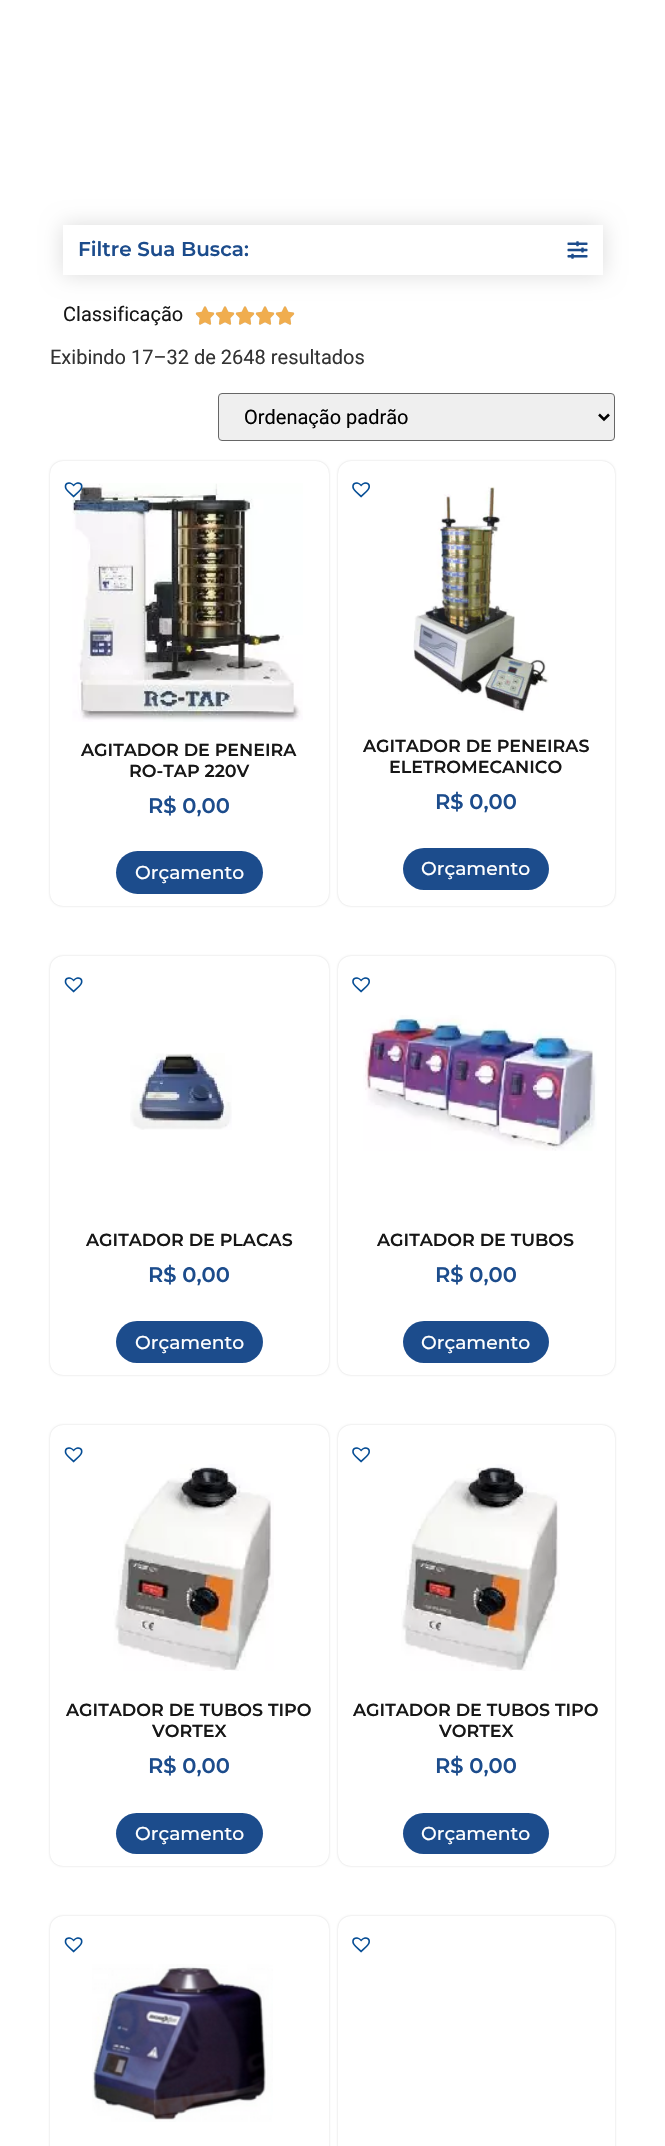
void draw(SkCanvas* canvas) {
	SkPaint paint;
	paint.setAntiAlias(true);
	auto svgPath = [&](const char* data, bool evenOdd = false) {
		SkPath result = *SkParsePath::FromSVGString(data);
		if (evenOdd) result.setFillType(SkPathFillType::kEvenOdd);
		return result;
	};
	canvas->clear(0xffffffff);
	canvas->save();
	canvas->clipPath(svgPath("M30 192H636V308H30ZM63 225H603V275H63Z", true), true);
	paint.setColor(0x24000000);
	paint.setMaskFilter(SkMaskFilter::MakeBlur(kNormal_SkBlurStyle, 10.5));
	canvas->drawRect(SkRect::MakeXYWH(63, 225, 540, 50), paint);
	paint.setMaskFilter(nullptr);
	canvas->restore();
	SkFont f1(fontMgr->matchFamilyStyle("Montserrat", SkFontStyle(600, SkFontStyle::kNormal_Width, SkFontStyle::kUpright_Slant)), 20);
	f1.setSubpixel(true);
	paint.setColor(0xff1c4c8c);
	canvas->drawString("Filtre Sua Busca:", 78, 256, f1, paint);
	canvas->drawImageRect(SkImages::DeferredFromEncodedData(SkData::MakeFromFileName("img1.png")), SkRect::MakeXYWH(567, 241, 21, 18), SkSamplingOptions());
	SkFont f2(fontMgr->matchFamilyStyle("Roboto", SkFontStyle::Normal()), 20);
	f2.setSubpixel(true);
	paint.setColor(0xff171717);
	canvas->drawString("Classificação", 63, 321, f2, paint);
	canvas->drawImageRect(SkImages::DeferredFromEncodedData(SkData::MakeFromFileName("img2.png")), SkRect::MakeXYWH(195, 306, 20, 19), SkSamplingOptions());
	canvas->drawImageRect(SkImages::DeferredFromEncodedData(SkData::MakeFromFileName("img3.png")), SkRect::MakeXYWH(195, 306, 20, 19), SkSamplingOptions());
	canvas->drawImageRect(SkImages::DeferredFromEncodedData(SkData::MakeFromFileName("img2.png")), SkRect::MakeXYWH(215, 306, 20, 19), SkSamplingOptions());
	canvas->drawImageRect(SkImages::DeferredFromEncodedData(SkData::MakeFromFileName("img3.png")), SkRect::MakeXYWH(215, 306, 20, 19), SkSamplingOptions());
	canvas->drawImageRect(SkImages::DeferredFromEncodedData(SkData::MakeFromFileName("img2.png")), SkRect::MakeXYWH(235, 306, 20, 19), SkSamplingOptions());
	canvas->drawImageRect(SkImages::DeferredFromEncodedData(SkData::MakeFromFileName("img3.png")), SkRect::MakeXYWH(235, 306, 20, 19), SkSamplingOptions());
	canvas->drawImageRect(SkImages::DeferredFromEncodedData(SkData::MakeFromFileName("img2.png")), SkRect::MakeXYWH(255, 306, 20, 19), SkSamplingOptions());
	canvas->drawImageRect(SkImages::DeferredFromEncodedData(SkData::MakeFromFileName("img3.png")), SkRect::MakeXYWH(255, 306, 20, 19), SkSamplingOptions());
	canvas->drawImageRect(SkImages::DeferredFromEncodedData(SkData::MakeFromFileName("img2.png")), SkRect::MakeXYWH(275, 306, 20, 19), SkSamplingOptions());
	canvas->drawImageRect(SkImages::DeferredFromEncodedData(SkData::MakeFromFileName("img3.png")), SkRect::MakeXYWH(275, 306, 20, 19), SkSamplingOptions());
	paint.setColor(0xff333333);
	canvas->drawString("Exibindo 17–32 de 2648 resultados", 50, 364, f2, paint);
	paint.setColor(0xffefefef);
	canvas->drawRoundRect(SkRect::MakeXYWH(218.5, 393.5, 396, 47), 3.5, 3.5, paint);
	paint.setStroke(true);
	paint.setStrokeWidth(1);
	paint.setColor(0xff666666);
	canvas->drawRoundRect(SkRect::MakeXYWH(218.5, 393.5, 396, 47), 3.5, 3.5, paint);
	paint.setStrokeWidth(2.5);
	paint.setColor(0xff000000);
	canvas->drawPath(svgPath("M599 414.5L604 419.5L609 414.5"), paint);
	paint.setStroke(false);
	canvas->drawString("Ordenação padrão", 244, 424, f2, paint);
	paint.setColor(0x2b000000);
	paint.setMaskFilter(SkMaskFilter::MakeBlur(kNormal_SkBlurStyle, 1));
	canvas->drawRoundRect(SkRect::MakeXYWH(50, 461, 279, 445), 13, 13, paint);
	paint.setMaskFilter(nullptr);
	paint.setColor(0xffffffff);
	canvas->drawRoundRect(SkRect::MakeXYWH(50, 461, 279, 445), 13, 13, paint);
	canvas->drawImageRect(SkImages::DeferredFromEncodedData(SkData::MakeFromFileName("img5.png")), SkRect::MakeXYWH(72, 483, 231, 239), SkSamplingOptions());
	canvas->drawImageRect(SkImages::DeferredFromEncodedData(SkData::MakeFromFileName("img4.png")), SkRect::MakeXYWH(64, 482, 19, 16), SkSamplingOptions());
	SkFont f3(fontMgr->matchFamilyStyle("Montserrat", SkFontStyle(600, SkFontStyle::kNormal_Width, SkFontStyle::kUpright_Slant)), 17.5);
	f3.setSubpixel(true);
	paint.setColor(0xff171717);
	canvas->drawString("AGITADOR DE PENEIRA", 81, 756, f3, paint);
	canvas->drawString("RO-TAP 220V", 129, 777, f3, paint);
	SkFont f4(fontMgr->matchFamilyStyle("Montserrat", SkFontStyle(600, SkFontStyle::kNormal_Width, SkFontStyle::kUpright_Slant)), 21);
	f4.setSubpixel(true);
	paint.setColor(0xff1c4c8c);
	canvas->drawString("R$ 0,00", 148, 813, f4, paint);
	canvas->drawRoundRect(SkRect::MakeXYWH(116, 851, 147, 43), 21.5, 21.5, paint);
	SkFont f5(fontMgr->matchFamilyStyle("Montserrat", SkFontStyle(500, SkFontStyle::kNormal_Width, SkFontStyle::kUpright_Slant)), 18.75);
	f5.setSubpixel(true);
	paint.setColor(0xffffffff);
	canvas->drawString("Orçamento", 135, 879, f5, paint);
	paint.setColor(0x2b000000);
	paint.setMaskFilter(SkMaskFilter::MakeBlur(kNormal_SkBlurStyle, 1));
	canvas->drawRoundRect(SkRect::MakeXYWH(338, 461, 277, 445), 13, 13, paint);
	paint.setMaskFilter(nullptr);
	paint.setColor(0xffffffff);
	canvas->drawRoundRect(SkRect::MakeXYWH(338, 461, 277, 445), 13, 13, paint);
	canvas->drawImageRect(SkImages::DeferredFromEncodedData(SkData::MakeFromFileName("img6.png")), SkRect::MakeXYWH(352, 482, 18, 16), SkSamplingOptions());
	canvas->drawImageRect(SkImages::DeferredFromEncodedData(SkData::MakeFromFileName("img7.png")), SkRect::MakeXYWH(413, 486, 136, 227), SkSamplingOptions());
	paint.setColor(0xff171717);
	canvas->drawString("AGITADOR DE PENEIRAS", 363, 752, f3, paint);
	canvas->drawString("ELETROMECANICO", 389, 773, f3, paint);
	paint.setColor(0xff1c4c8c);
	canvas->drawString("R$ 0,00", 435, 809, f4, paint);
	canvas->drawRoundRect(SkRect::MakeXYWH(403, 848, 146, 42), 21, 21, paint);
	paint.setColor(0xffffffff);
	canvas->drawString("Orçamento", 421, 875, f5, paint);
	paint.setColor(0x2b000000);
	paint.setMaskFilter(SkMaskFilter::MakeBlur(kNormal_SkBlurStyle, 1));
	canvas->drawRoundRect(SkRect::MakeXYWH(50, 956, 279, 419), 13, 13, paint);
	paint.setMaskFilter(nullptr);
	paint.setColor(0xffffffff);
	canvas->drawRoundRect(SkRect::MakeXYWH(50, 956, 279, 419), 13, 13, paint);
	canvas->drawImageRect(SkImages::DeferredFromEncodedData(SkData::MakeFromFileName("img8.png")), SkRect::MakeXYWH(64, 977, 19, 16), SkSamplingOptions());
	canvas->drawImageRect(SkImages::DeferredFromEncodedData(SkData::MakeFromFileName("img9.png")), SkRect::MakeXYWH(130, 1053, 102, 77), SkSamplingOptions());
	paint.setColor(0xff171717);
	canvas->drawString("AGITADOR DE PLACAS", 86, 1246, f3, paint);
	paint.setColor(0xff1c4c8c);
	canvas->drawString("R$ 0,00", 148, 1282, f4, paint);
	canvas->drawRoundRect(SkRect::MakeXYWH(116, 1321, 147, 42), 21, 21, paint);
	paint.setColor(0xffffffff);
	canvas->drawString("Orçamento", 135, 1349, f5, paint);
	paint.setColor(0x2b000000);
	paint.setMaskFilter(SkMaskFilter::MakeBlur(kNormal_SkBlurStyle, 1));
	canvas->drawRoundRect(SkRect::MakeXYWH(338, 956, 277, 419), 13, 13, paint);
	paint.setMaskFilter(nullptr);
	paint.setColor(0xffffffff);
	canvas->drawRoundRect(SkRect::MakeXYWH(338, 956, 277, 419), 13, 13, paint);
	canvas->drawImageRect(SkImages::DeferredFromEncodedData(SkData::MakeFromFileName("img6.png")), SkRect::MakeXYWH(352, 977, 18, 16), SkSamplingOptions());
	canvas->drawImageRect(SkImages::DeferredFromEncodedData(SkData::MakeFromFileName("img10.png")), SkRect::MakeXYWH(363, 1015, 234, 136), SkSamplingOptions());
	paint.setColor(0xff171717);
	canvas->drawString("AGITADOR DE TUBOS", 377, 1246, f3, paint);
	paint.setColor(0xff1c4c8c);
	canvas->drawString("R$ 0,00", 435, 1282, f4, paint);
	canvas->drawRoundRect(SkRect::MakeXYWH(403, 1321, 146, 42), 21, 21, paint);
	paint.setColor(0xffffffff);
	canvas->drawString("Orçamento", 421, 1349, f5, paint);
	paint.setColor(0x2b000000);
	paint.setMaskFilter(SkMaskFilter::MakeBlur(kNormal_SkBlurStyle, 1));
	canvas->drawRoundRect(SkRect::MakeXYWH(50, 1425, 279, 441), 13, 13, paint);
	paint.setMaskFilter(nullptr);
	paint.setColor(0xffffffff);
	canvas->drawRoundRect(SkRect::MakeXYWH(50, 1425, 279, 441), 13, 13, paint);
	canvas->drawImageRect(SkImages::DeferredFromEncodedData(SkData::MakeFromFileName("img8.png")), SkRect::MakeXYWH(64, 1447, 19, 16), SkSamplingOptions());
	canvas->drawImageRect(SkImages::DeferredFromEncodedData(SkData::MakeFromFileName("img11.png")), SkRect::MakeXYWH(113, 1464, 161, 207), SkSamplingOptions());
	paint.setColor(0xff171717);
	canvas->drawString("AGITADOR DE TUBOS TIPO", 66, 1716, f3, paint);
	canvas->drawString("VORTEX", 152, 1737, f3, paint);
	paint.setColor(0xff1c4c8c);
	canvas->drawString("R$ 0,00", 148, 1773, f4, paint);
	canvas->drawRoundRect(SkRect::MakeXYWH(116, 1813, 147, 41), 20.5, 20.5, paint);
	paint.setColor(0xffffffff);
	canvas->drawString("Orçamento", 135, 1840, f5, paint);
	paint.setColor(0x2b000000);
	paint.setMaskFilter(SkMaskFilter::MakeBlur(kNormal_SkBlurStyle, 1));
	canvas->drawRoundRect(SkRect::MakeXYWH(338, 1425, 277, 441), 13, 13, paint);
	paint.setMaskFilter(nullptr);
	paint.setColor(0xffffffff);
	canvas->drawRoundRect(SkRect::MakeXYWH(338, 1425, 277, 441), 13, 13, paint);
	canvas->drawImageRect(SkImages::DeferredFromEncodedData(SkData::MakeFromFileName("img6.png")), SkRect::MakeXYWH(352, 1447, 18, 16), SkSamplingOptions());
	canvas->drawImageRect(SkImages::DeferredFromEncodedData(SkData::MakeFromFileName("img12.png")), SkRect::MakeXYWH(401, 1464, 159, 207), SkSamplingOptions());
	paint.setColor(0xff171717);
	canvas->drawString("AGITADOR DE TUBOS TIPO", 353, 1716, f3, paint);
	canvas->drawString("VORTEX", 439, 1737, f3, paint);
	paint.setColor(0xff1c4c8c);
	canvas->drawString("R$ 0,00", 435, 1773, f4, paint);
	canvas->drawRoundRect(SkRect::MakeXYWH(403, 1813, 146, 41), 20.5, 20.5, paint);
	paint.setColor(0xffffffff);
	canvas->drawString("Orçamento", 421, 1840, f5, paint);
	paint.setColor(0x2b000000);
	paint.setMaskFilter(SkMaskFilter::MakeBlur(kNormal_SkBlurStyle, 1));
	canvas->drawRoundRect(SkRect::MakeXYWH(50, 1916, 279, 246), 13, 13, paint);
	paint.setMaskFilter(nullptr);
	paint.setColor(0xffffffff);
	canvas->drawRoundRect(SkRect::MakeXYWH(50, 1916, 279, 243), 13, 13, paint);
	canvas->drawImageRect(SkImages::DeferredFromEncodedData(SkData::MakeFromFileName("img8.png")), SkRect::MakeXYWH(64, 1937, 19, 16), SkSamplingOptions());
	canvas->drawImageRect(SkImages::DeferredFromEncodedData(SkData::MakeFromFileName("img13.png")), SkRect::MakeXYWH(92, 1964, 181, 158), SkSamplingOptions());
	paint.setColor(0x2b000000);
	paint.setMaskFilter(SkMaskFilter::MakeBlur(kNormal_SkBlurStyle, 1));
	canvas->drawRoundRect(SkRect::MakeXYWH(338, 1916, 277, 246), 13, 13, paint);
	paint.setMaskFilter(nullptr);
	paint.setColor(0xffffffff);
	canvas->drawRoundRect(SkRect::MakeXYWH(338, 1916, 277, 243), 13, 13, paint);
	canvas->drawImageRect(SkImages::DeferredFromEncodedData(SkData::MakeFromFileName("img6.png")), SkRect::MakeXYWH(352, 1937, 18, 16), SkSamplingOptions());
}
